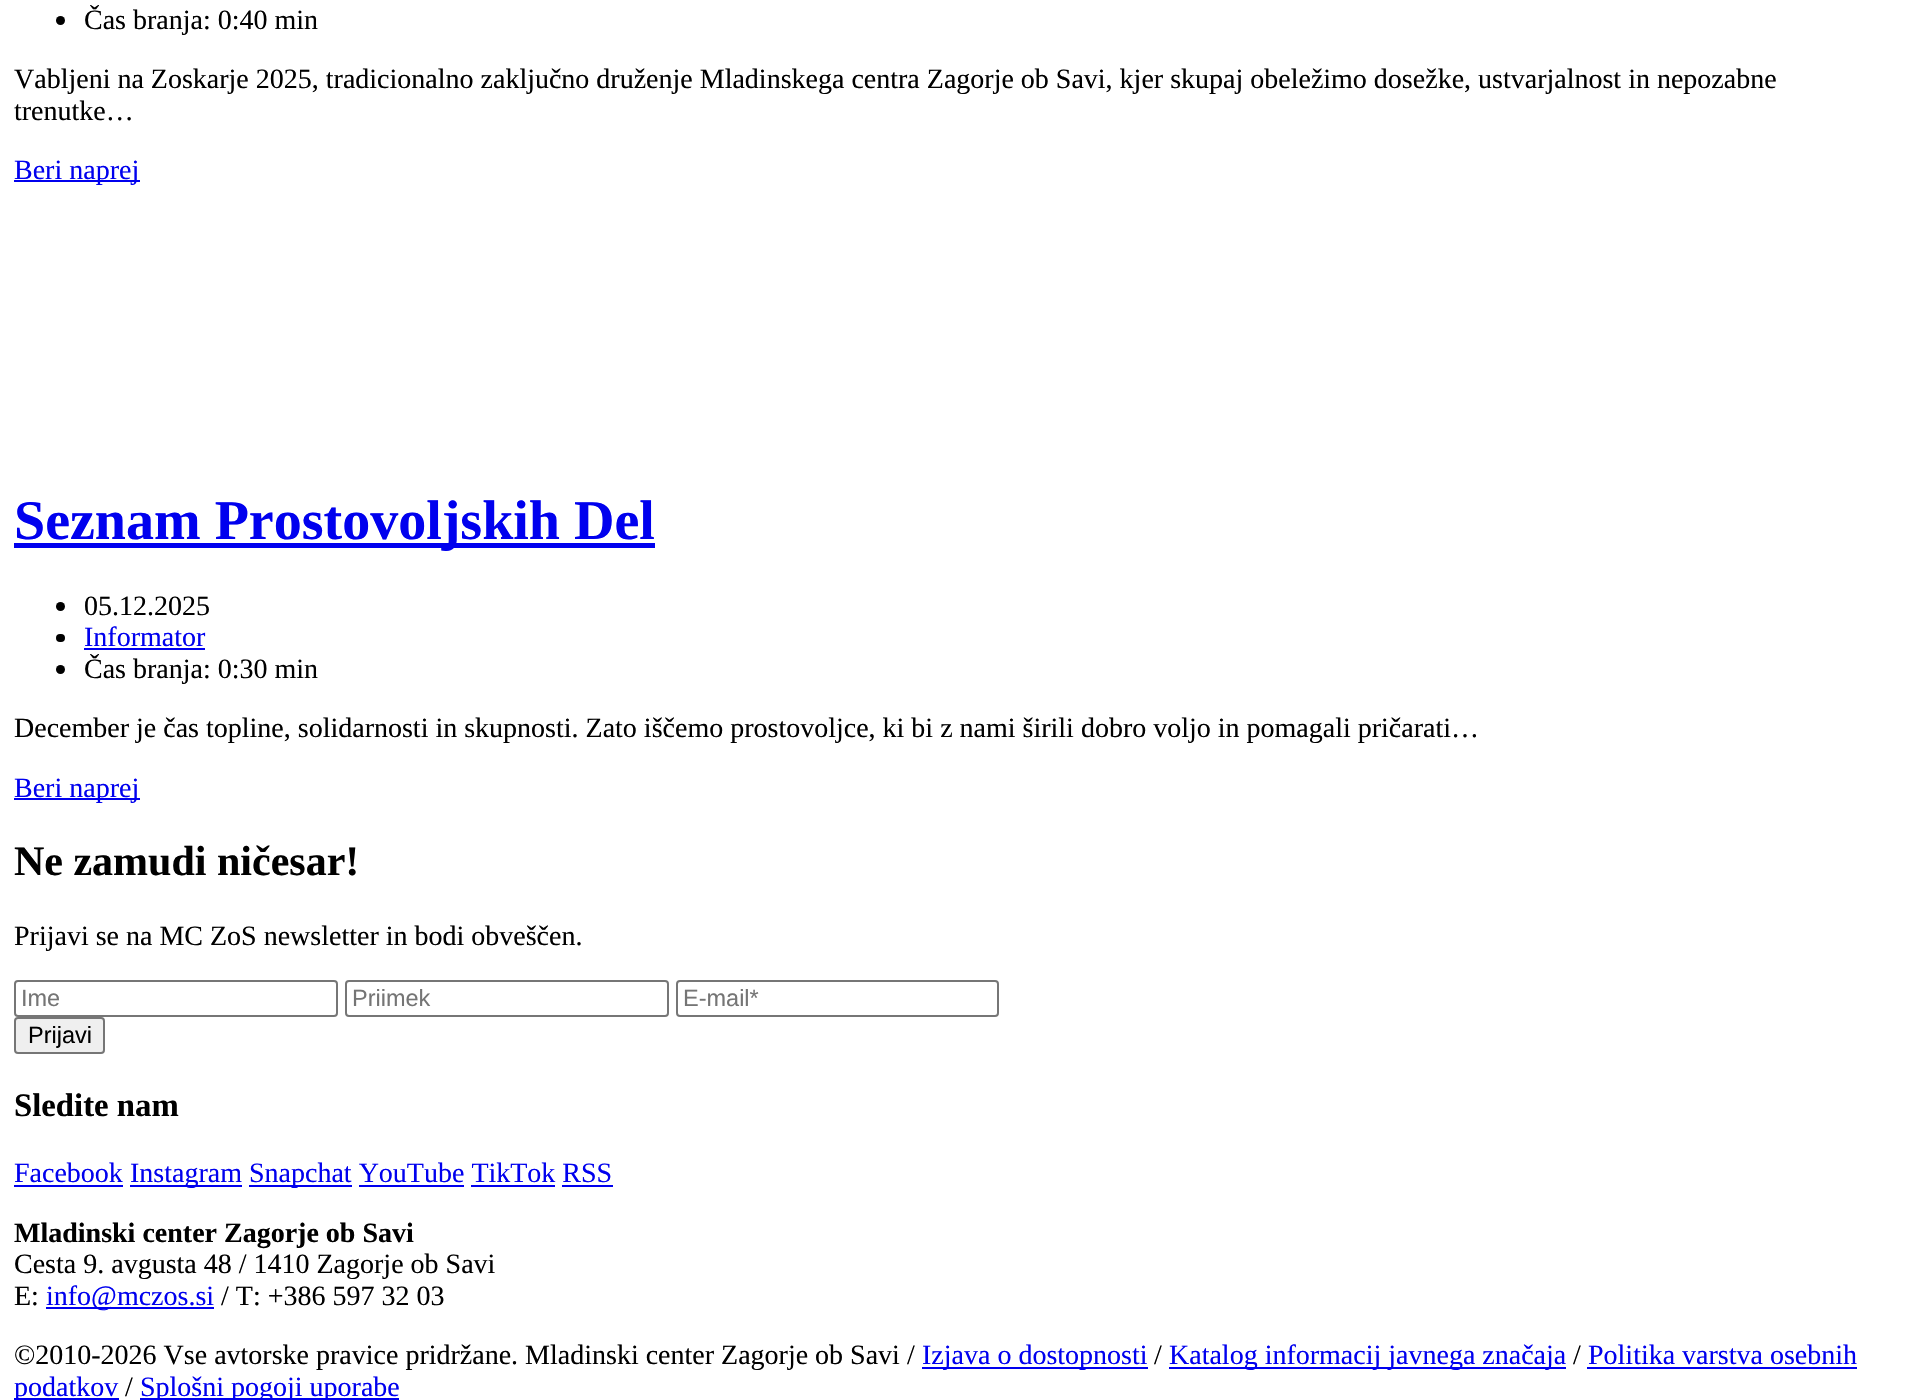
void draw(SkCanvas* canvas) {
	SkPaint paint;
	paint.setAntiAlias(true);
	canvas->clear(0xffffffff);
	paint.setColor(0xff000000);
	canvas->drawCircle(60.5, 20.5, 4.5, paint);
	SkFont f1(fontMgr->matchFamilyStyle("Liberation Serif", SkFontStyle::Normal()), 28);
	f1.setSubpixel(true);
	canvas->drawString("Čas branja: 0:40 min", 84, 29, f1, paint);
	canvas->drawString("Vabljeni na Zoskarje 2025, tradicionalno zaključno druženje Mladinskega centra Zagorje ob Savi, kjer skupaj obeležimo dosežke, ustvarjalnost in nepozabne", 14, 88, f1, paint);
	canvas->drawString("trenutke…", 14, 120, f1, paint);
	paint.setColor(0xff0000ee);
	canvas->drawRect(SkRect::MakeXYWH(14, 180, 126, 2), paint);
	canvas->drawString("Beri naprej", 14, 179, f1, paint);
	canvas->drawRect(SkRect::MakeXYWH(14, 543, 641, 5), paint);
	SkFont f2(fontMgr->matchFamilyStyle("Liberation Serif", SkFontStyle::Bold()), 56);
	f2.setSubpixel(true);
	canvas->drawString("Seznam Prostovoljskih Del", 14, 539, f2, paint);
	paint.setColor(0xff000000);
	canvas->drawCircle(60.5, 606.5, 4.5, paint);
	canvas->drawString("05.12.2025", 84, 615, f1, paint);
	canvas->drawRoundRect(SkRect::MakeXYWH(56, 634, 9, 8), 4, 4, paint);
	paint.setColor(0xff0000ee);
	canvas->drawString("Informator", 84, 646, f1, paint);
	canvas->drawRect(SkRect::MakeXYWH(84, 648, 121, 2), paint);
	paint.setColor(0xff000000);
	canvas->drawCircle(60.5, 669.5, 4.5, paint);
	canvas->drawString("Čas branja: 0:30 min", 84, 678, f1, paint);
	canvas->drawString("December je čas topline, solidarnosti in skupnosti. Zato iščemo prostovoljce, ki bi z nami širili dobro voljo in pomagali pričarati…", 14, 737, f1, paint);
	paint.setColor(0xff0000ee);
	canvas->drawRect(SkRect::MakeXYWH(14, 798, 126, 2), paint);
	canvas->drawString("Beri naprej", 14, 797, f1, paint);
	SkFont f3(fontMgr->matchFamilyStyle("Liberation Serif", SkFontStyle::Bold()), 42);
	f3.setSubpixel(true);
	paint.setColor(0xff000000);
	canvas->drawString("Ne zamudi ničesar!", 14, 875, f3, paint);
	canvas->drawString("Prijavi se na MC ZoS newsletter in bodi obveščen.", 14, 945, f1, paint);
	paint.setStroke(true);
	paint.setStrokeWidth(2);
	paint.setColor(0xff767676);
	canvas->drawRoundRect(SkRect::MakeXYWH(15, 981, 322, 35), 3, 3, paint);
	SkFont f4(fontMgr->matchFamilyStyle("Liberation Sans", SkFontStyle::Normal()), 23.5);
	f4.setSubpixel(true);
	paint.setStroke(false);
	paint.setColor(0xff757575);
	canvas->drawString("Ime", 21, 1006, f4, paint);
	paint.setStroke(true);
	paint.setColor(0xff767676);
	canvas->drawRoundRect(SkRect::MakeXYWH(346, 981, 322, 35), 3, 3, paint);
	paint.setStroke(false);
	paint.setColor(0xff757575);
	canvas->drawString("Priimek", 352, 1006, f4, paint);
	paint.setStroke(true);
	paint.setColor(0xff767676);
	canvas->drawRoundRect(SkRect::MakeXYWH(677, 981, 321, 35), 3, 3, paint);
	paint.setStroke(false);
	paint.setColor(0xff757575);
	canvas->drawString("E-mail*", 683, 1006, f4, paint);
	paint.setColor(0xffefefef);
	canvas->drawRoundRect(SkRect::MakeXYWH(15, 1018, 89, 35), 3, 3, paint);
	paint.setStroke(true);
	paint.setColor(0xff767676);
	canvas->drawRoundRect(SkRect::MakeXYWH(15, 1018, 89, 35), 3, 3, paint);
	paint.setStroke(false);
	paint.setColor(0xff000000);
	canvas->drawString("Prijavi", 28, 1043, f4, paint);
	SkFont f5(fontMgr->matchFamilyStyle("Liberation Serif", SkFontStyle::Bold()), 32.75);
	f5.setSubpixel(true);
	canvas->drawString("Sledite nam", 14, 1116, f5, paint);
	paint.setColor(0xff0000ee);
	canvas->drawString("Facebook", 14, 1182, f1, paint);
	canvas->drawRect(SkRect::MakeXYWH(14, 1185, 109, 2), paint);
	canvas->drawRect(SkRect::MakeXYWH(130, 1185, 112, 2), paint);
	canvas->drawString("Instagram", 130, 1182, f1, paint);
	canvas->drawRect(SkRect::MakeXYWH(249, 1185, 103, 2), paint);
	canvas->drawString("Snapchat YouTube TikTok RSS", 249, 1182, f1, paint);
	canvas->drawRect(SkRect::MakeXYWH(359, 1185, 105, 2), paint);
	canvas->drawRect(SkRect::MakeXYWH(471, 1185, 84, 2), paint);
	canvas->drawRect(SkRect::MakeXYWH(562, 1185, 51, 2), paint);
	SkFont f6(fontMgr->matchFamilyStyle("Liberation Serif", SkFontStyle::Bold()), 28);
	f6.setSubpixel(true);
	paint.setColor(0xff000000);
	canvas->drawString("Mladinski center Zagorje ob Savi", 14, 1242, f6, paint);
	canvas->drawString("Cesta 9. avgusta 48 / 1410 Zagorje ob Savi", 14, 1273, f1, paint);
	canvas->drawString("E:", 14, 1305, f1, paint);
	paint.setColor(0xff0000ee);
	canvas->drawRect(SkRect::MakeXYWH(46, 1307, 168, 2), paint);
	canvas->drawString("info@mczos.si", 46, 1305, f1, paint);
	paint.setColor(0xff000000);
	canvas->drawString("/ T: +386 597 32 03", 221, 1305, f1, paint);
	canvas->drawString("©2010-2026 Vse avtorske pravice pridržane. Mladinski center Zagorje ob Savi /", 14, 1364, f1, paint);
	paint.setColor(0xff0000ee);
	canvas->drawRect(SkRect::MakeXYWH(922, 1367, 226, 2), paint);
	canvas->drawString("Izjava o dostopnosti", 922, 1364, f1, paint);
	paint.setColor(0xff000000);
	canvas->drawString("/", 1154, 1364, f1, paint);
	paint.setColor(0xff0000ee);
	canvas->drawRect(SkRect::MakeXYWH(1169, 1367, 397, 2), paint);
	canvas->drawString("Katalog informacij javnega značaja", 1169, 1364, f1, paint);
	paint.setColor(0xff000000);
	canvas->drawString("/", 1573, 1364, f1, paint);
	paint.setColor(0xff0000ee);
	canvas->drawString("Politika varstva osebnih", 1588, 1364, f1, paint);
	canvas->drawRect(SkRect::MakeXYWH(1587, 1367, 270, 2), paint);
	canvas->drawRect(SkRect::MakeXYWH(14, 1398, 105, 2), paint);
	canvas->drawString("podatkov", 14, 1396, f1, paint);
	paint.setColor(0xff000000);
	canvas->drawString("/", 125, 1396, f1, paint);
	paint.setColor(0xff0000ee);
	canvas->drawRect(SkRect::MakeXYWH(140, 1398, 259, 2), paint);
	canvas->drawString("Splošni pogoji uporabe", 140, 1396, f1, paint);
}
